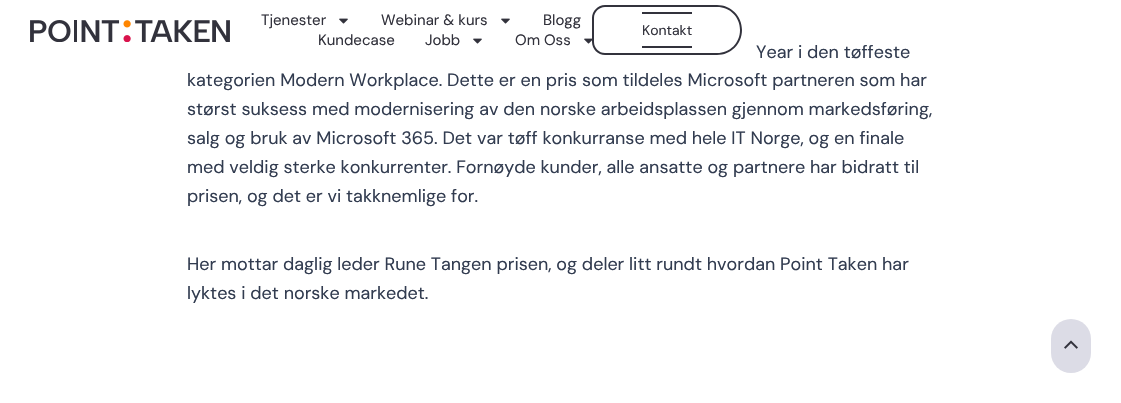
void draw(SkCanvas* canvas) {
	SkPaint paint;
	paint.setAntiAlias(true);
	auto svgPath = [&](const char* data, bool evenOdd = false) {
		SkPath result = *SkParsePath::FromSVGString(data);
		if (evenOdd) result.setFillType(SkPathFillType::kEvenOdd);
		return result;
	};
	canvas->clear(0xffffffff);
	canvas->drawImageRect(SkImages::DeferredFromEncodedData(SkData::MakeFromFileName("img1.png")), SkRect::MakeXYWH(30, 20, 200, 22), SkSamplingOptions());
	SkFont f1(fontMgr->matchFamilyStyle("DM Sans", SkFontStyle::Normal()), 15);
	f1.setSubpixel(true);
	paint.setColor(0xff32323c);
	canvas->drawString("Tjenester", 261, 25, f1, paint);
	canvas->drawImageRect(SkImages::DeferredFromEncodedData(SkData::MakeFromFileName("img2.png")), SkRect::MakeXYWH(339, 18, 9, 6), SkSamplingOptions());
	canvas->drawString("Webinar & kurs", 381, 25, f1, paint);
	canvas->drawImageRect(SkImages::DeferredFromEncodedData(SkData::MakeFromFileName("img2.png")), SkRect::MakeXYWH(501, 18, 9, 6), SkSamplingOptions());
	canvas->drawString("Blogg", 543, 25, f1, paint);
	canvas->drawString("Kundecase", 318, 45, f1, paint);
	canvas->drawString("Jobb", 425, 45, f1, paint);
	canvas->drawImageRect(SkImages::DeferredFromEncodedData(SkData::MakeFromFileName("img2.png")), SkRect::MakeXYWH(473, 38, 9, 6), SkSamplingOptions());
	canvas->drawString("Om Oss", 515, 45, f1, paint);
	canvas->drawImageRect(SkImages::DeferredFromEncodedData(SkData::MakeFromFileName("img3.png")), SkRect::MakeXYWH(584, 38, 8, 6), SkSamplingOptions());
	canvas->drawRect(SkRect::MakeXYWH(642, 12, 50, 2), paint);
	canvas->drawRect(SkRect::MakeXYWH(642, 46, 50, 2), paint);
	canvas->drawPath(svgPath("M618 5H717C731 5 742 16 742 30C742 44 731 55 717 55H618ZM618 7H717C730 7 740 17 740 30C740 43 730 53 717 53H618Z", true), paint);
	SkFont f2(fontMgr->matchFamilyStyle("DM Sans", SkFontStyle::Normal()), 14);
	f2.setSubpixel(true);
	canvas->drawString("Kontakt", 642, 35, f2, paint);
	canvas->drawPath(svgPath("M605 5H618V55H605C598 55 592 49 592 42V18C592 11 598 5 605 5ZM605 7H618V53H605C599 53 594 48 594 42V18C594 12 599 7 605 7Z", true), paint);
	SkFont f3(fontMgr->matchFamilyStyle("DM Sans", SkFontStyle::Normal()), 18);
	f3.setSubpixel(true);
	paint.setColor(0xff323c50);
	canvas->drawString("Year i den tøffeste", 756, 58, f3, paint);
	canvas->drawString("kategorien Modern Workplace. Dette er en pris som tildeles Microsoft partneren som har", 187, 86, f3, paint);
	canvas->drawString("størst suksess med modernisering av den norske arbeidsplassen gjennom markedsføring,", 187, 115, f3, paint);
	canvas->drawString("salg og bruk av Microsoft 365. Det var tøff konkurranse med hele IT Norge, og en finale", 187, 144, f3, paint);
	canvas->drawString("med veldig sterke konkurrenter. Fornøyde kunder, alle ansatte og partnere har bidratt til", 187, 173, f3, paint);
	canvas->drawString("prisen, og det er vi takknemlige for.", 187, 202, f3, paint);
	canvas->drawString("Her mottar daglig leder Rune Tangen prisen, og deler litt rundt hvordan Point Taken har", 187, 270, f3, paint);
	canvas->drawString("lyktes i det norske markedet.", 187, 299, f3, paint);
	paint.setColor(0xffdcdce6);
	canvas->drawRoundRect(SkRect::MakeXYWH(1051, 319, 40, 54), 20, 20, paint);
	canvas->drawImageRect(SkImages::DeferredFromEncodedData(SkData::MakeFromFileName("img4.png")), SkRect::MakeXYWH(1064, 340, 14, 9), SkSamplingOptions());
}
